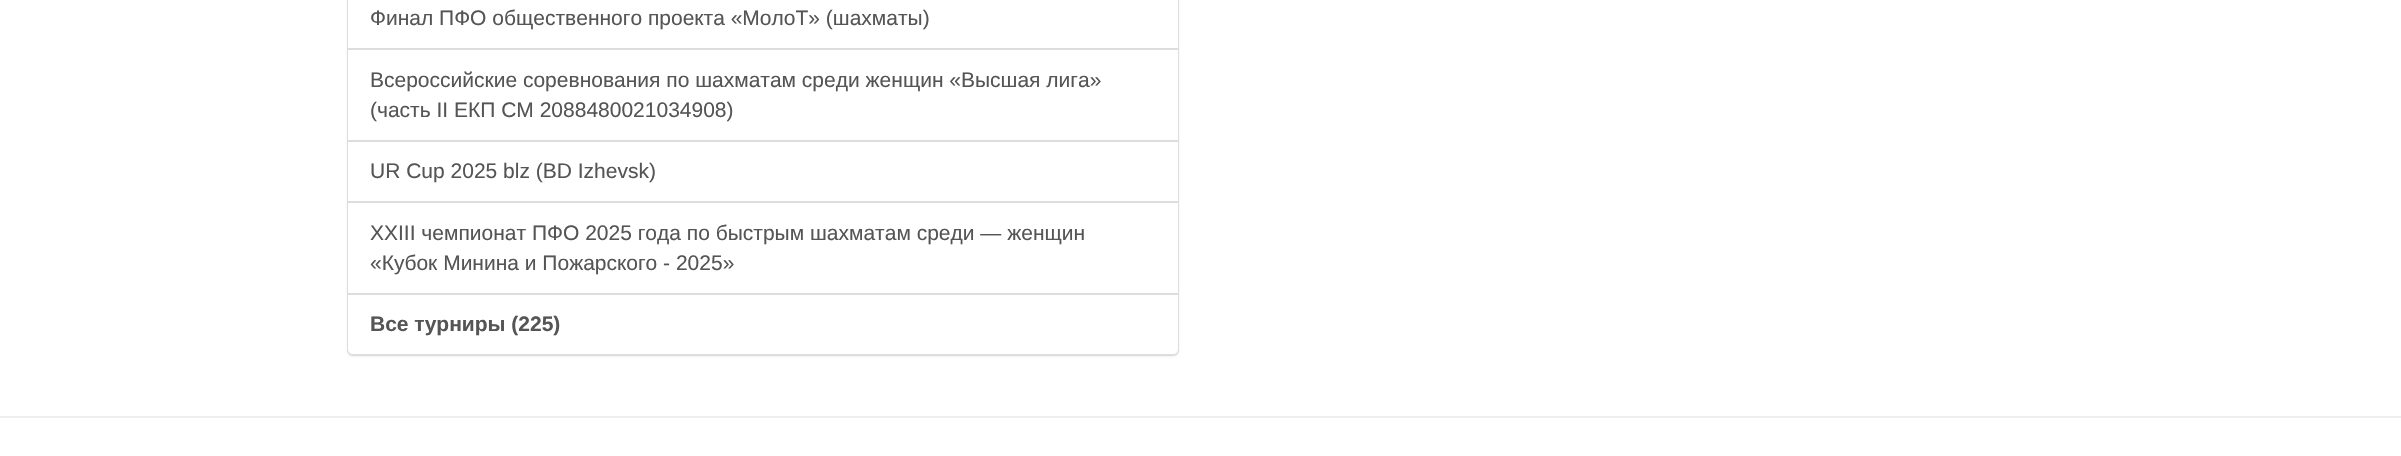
void draw(SkCanvas* canvas) {
	SkPaint paint;
	paint.setAntiAlias(true);
	auto svgPath = [&](const char* data, bool evenOdd = false) {
		SkPath result = *SkParsePath::FromSVGString(data);
		if (evenOdd) result.setFillType(SkPathFillType::kEvenOdd);
		return result;
	};
	canvas->clear(0xffffffff);
	paint.setColor(0x0d000000);
	paint.setMaskFilter(SkMaskFilter::MakeBlur(kNormal_SkBlurStyle, 1));
	canvas->drawRoundRect(SkRect::MakeXYWH(347, -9, 832, 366), 6, 6, paint);
	paint.setMaskFilter(nullptr);
	paint.setStroke(true);
	paint.setStrokeWidth(2);
	paint.setColor(0xffdddddd);
	canvas->drawRoundRect(SkRect::MakeXYWH(348, -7, 830, 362), 5, 5, paint);
	paint.setStroke(false);
	paint.setColor(0xffffffff);
	canvas->drawRect(SkRect::MakeXYWH(348, 0, 830, 48), paint);
	paint.setColor(0xffdddddd);
	canvas->drawRect(SkRect::MakeXYWH(348, 48, 830, 2), paint);
	SkFont f1(fontMgr->matchFamilyStyle("Liberation Sans", SkFontStyle::Normal()), 21);
	f1.setSubpixel(true);
	paint.setColor(0xff555555);
	canvas->drawString("Финал ПФО общественного проекта «МолоТ» (шахматы)", 370, 25, f1, paint);
	paint.setColor(0xffffffff);
	canvas->drawRect(SkRect::MakeXYWH(348, 50, 830, 90), paint);
	paint.setColor(0xff555555);
	canvas->drawString("Всероссийские соревнования по шахматам среди женщин «Высшая лига»", 370, 87, f1, paint);
	canvas->drawString("(часть II ЕКП СМ 2088480021034908)", 370, 117, f1, paint);
	paint.setColor(0xffffffff);
	canvas->drawRect(SkRect::MakeXYWH(348, 142, 830, 59), paint);
	paint.setColor(0xffdddddd);
	canvas->drawRect(SkRect::MakeXYWH(348, 140, 830, 2), paint);
	canvas->drawRect(SkRect::MakeXYWH(348, 201, 830, 2), paint);
	paint.setColor(0xff555555);
	canvas->drawString("UR Cup 2025 blz (BD Izhevsk)", 370, 178, f1, paint);
	paint.setColor(0xffffffff);
	canvas->drawRect(SkRect::MakeXYWH(348, 203, 830, 90), paint);
	paint.setColor(0xff555555);
	canvas->drawString("XXIII чемпионат ПФО 2025 года по быстрым шахматам среди — женщин", 370, 240, f1, paint);
	canvas->drawString("«Кубок Минина и Пожарского - 2025»", 370, 270, f1, paint);
	paint.setColor(0xffffffff);
	canvas->drawPath(svgPath("M348 293H1178V349C1178 352 1176 354 1173 354H353C350 354 348 352 348 349Z"), paint);
	paint.setColor(0xffdddddd);
	canvas->drawRect(SkRect::MakeXYWH(348, 293, 830, 2), paint);
	SkFont f2(fontMgr->matchFamilyStyle("Liberation Sans", SkFontStyle::Bold()), 21);
	f2.setSubpixel(true);
	paint.setColor(0xff555555);
	canvas->drawString("Все турниры (225)", 370, 331, f2, paint);
	paint.setColor(0xffeeeeee);
	canvas->drawRect(SkRect::MakeXYWH(0, 416, 2401, 2), paint);
}
